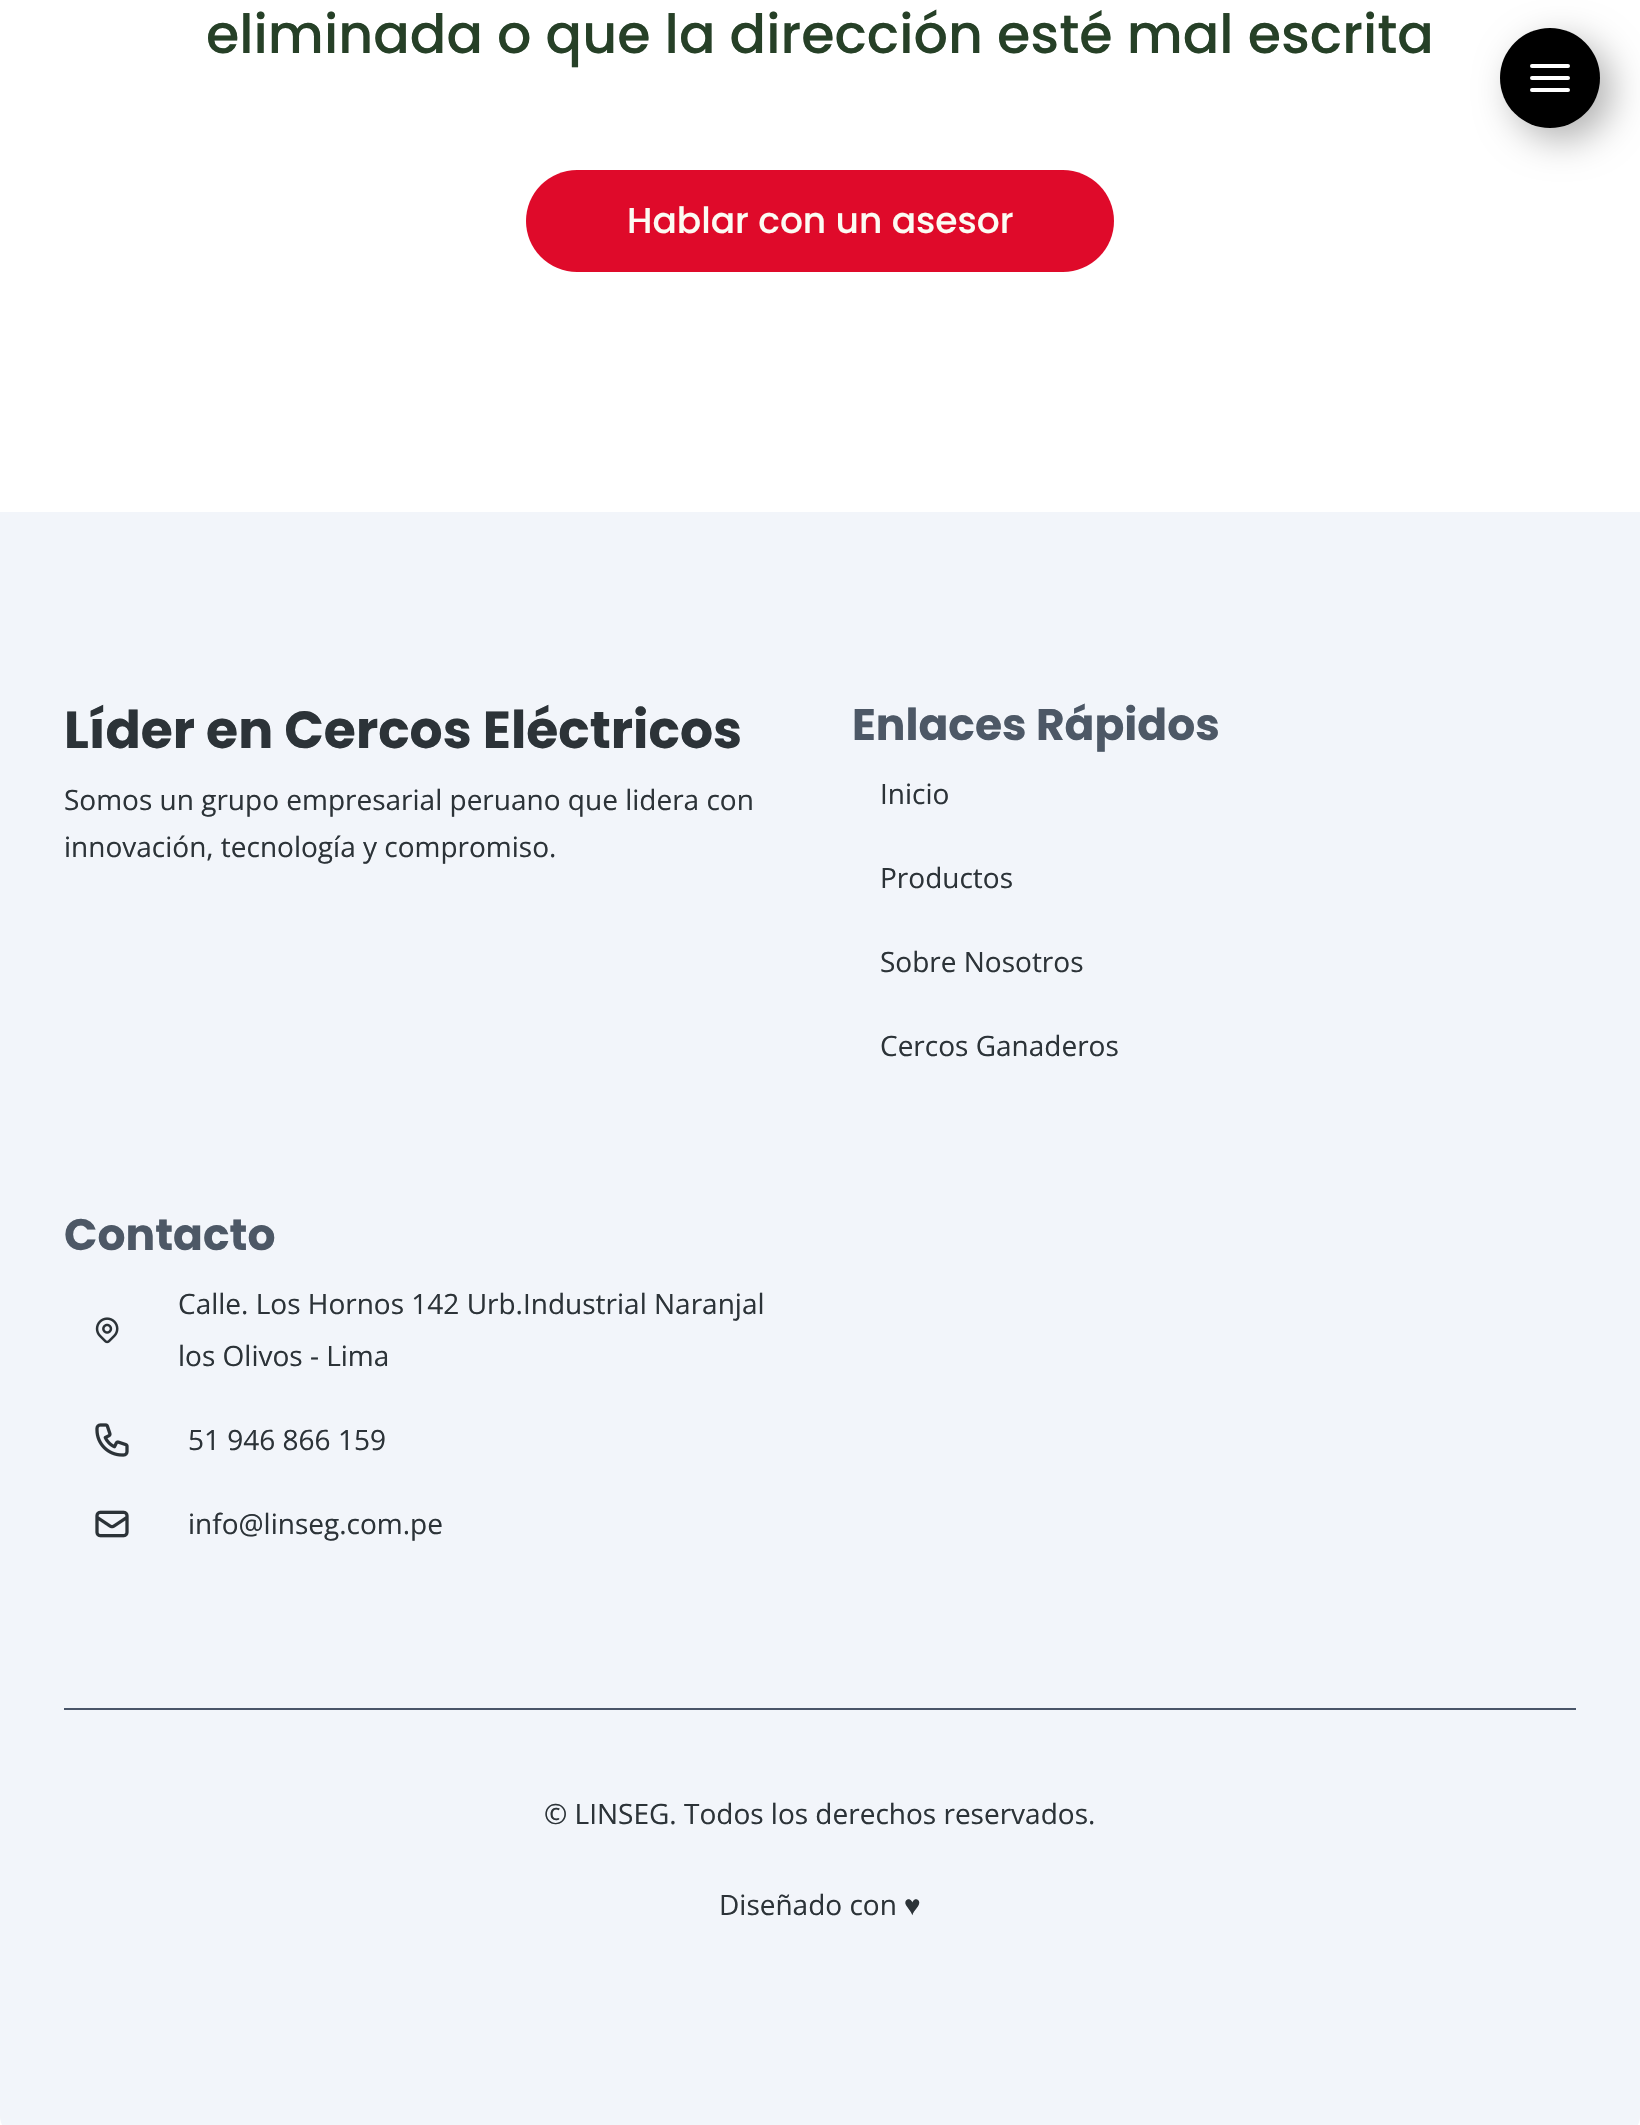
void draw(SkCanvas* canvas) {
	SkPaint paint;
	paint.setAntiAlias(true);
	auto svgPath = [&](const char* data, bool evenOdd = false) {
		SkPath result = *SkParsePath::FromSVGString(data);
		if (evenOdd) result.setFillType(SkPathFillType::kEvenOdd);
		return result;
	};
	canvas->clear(0xffffffff);
	SkFont f1(fontMgr->matchFamilyStyle("Poppins", SkFontStyle(500, SkFontStyle::kNormal_Width, SkFontStyle::kUpright_Slant)), 54);
	f1.setSubpixel(true);
	paint.setColor(0xff264027);
	canvas->drawString("eliminada o que la dirección esté mal escrita", 206, 53, f1, paint);
	paint.setColor(0xffdf0a2a);
	canvas->drawRoundRect(SkRect::MakeXYWH(526, 170, 588, 102), 51, 51, paint);
	SkFont f2(fontMgr->matchFamilyStyle("Poppins", SkFontStyle(500, SkFontStyle::kNormal_Width, SkFontStyle::kUpright_Slant)), 36);
	f2.setSubpixel(true);
	paint.setColor(0xfffcfbf3);
	canvas->drawString("Hablar con un asesor", 627, 233, f2, paint);
	paint.setColor(0xfff2f5fa);
	canvas->drawPath(svgPath("M0 512H1640V2116C1640 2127 1631 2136 1620 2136H20C9 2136 0 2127 0 2116Z"), paint);
	SkFont f3(fontMgr->matchFamilyStyle("Poppins", SkFontStyle::Bold()), 52);
	f3.setSubpixel(true);
	paint.setColor(0xff2c3338);
	canvas->drawString("Líder en Cercos Eléctricos", 64, 748, f3, paint);
	SkFont f4(fontMgr->matchFamilyStyle("Open Sans", SkFontStyle::Normal()), 28);
	f4.setSubpixel(true);
	canvas->drawString("Somos un grupo empresarial peruano que lidera con", 64, 810, f4, paint);
	canvas->drawString("innovación, tecnología y compromiso.", 64, 857, f4, paint);
	SkFont f5(fontMgr->matchFamilyStyle("Poppins", SkFontStyle::Bold()), 44);
	f5.setSubpixel(true);
	paint.setColor(0xff4d5866);
	canvas->drawString("Enlaces Rápidos", 852, 740, f5, paint);
	paint.setColor(0xff2c3338);
	canvas->drawString("Inicio", 880, 804, f4, paint);
	canvas->drawString("Productos", 880, 888, f4, paint);
	canvas->drawString("Sobre Nosotros", 880, 972, f4, paint);
	canvas->drawString("Cercos Ganaderos", 880, 1056, f4, paint);
	paint.setColor(0xff4d5866);
	canvas->drawString("Contacto", 64, 1250, f5, paint);
	canvas->drawImageRect(SkImages::DeferredFromEncodedData(SkData::MakeFromFileName("img1.png")), SkRect::MakeXYWH(95, 1317, 24, 27), SkSamplingOptions());
	paint.setColor(0xff2c3338);
	canvas->drawString("Calle. Los Hornos 142 Urb.Industrial Naranjal", 178, 1314, f4, paint);
	canvas->drawString("los Olivos - Lima", 178, 1366, f4, paint);
	canvas->drawImageRect(SkImages::DeferredFromEncodedData(SkData::MakeFromFileName("img2.png")), SkRect::MakeXYWH(95, 1423, 34, 34), SkSamplingOptions());
	canvas->drawString("51 946 866 159", 188, 1450, f4, paint);
	canvas->drawImageRect(SkImages::DeferredFromEncodedData(SkData::MakeFromFileName("img3.png")), SkRect::MakeXYWH(95, 1510, 34, 28), SkSamplingOptions());
	canvas->drawString("info@linseg.com.pe", 188, 1534, f4, paint);
	paint.setColor(0xff4a5568);
	canvas->drawRect(SkRect::MakeXYWH(64, 1708, 1512, 2), paint);
	paint.setColor(0xff2c3338);
	canvas->drawString("© LINSEG. Todos los derechos reservados.", 544, 1824, f4, paint);
	canvas->drawString("Diseñado con", 719, 1915, f4, paint);
	SkFont f6(fontMgr->matchFamilyStyle("Liberation Sans", SkFontStyle::Normal()), 28);
	f6.setSubpixel(true);
	canvas->drawString("♥", 904, 1915, f6, paint);
	paint.setColor(0x4d000000);
	paint.setMaskFilter(SkMaskFilter::MakeBlur(kNormal_SkBlurStyle, 18));
	canvas->drawRoundRect(SkRect::MakeXYWH(1512, 40, 100, 100), 50, 50, paint);
	paint.setMaskFilter(nullptr);
	paint.setColor(0xff000000);
	canvas->drawCircle(1550, 78, 50, paint);
	paint.setStroke(true);
	paint.setStrokeWidth(4);
	paint.setStrokeCap(SkPaint::kRound_Cap);
	paint.setStrokeJoin(SkPaint::kRound_Join);
	paint.setColor(0xffffffff);
	canvas->drawPath(svgPath("M1532 78H1568M1532 66H1568M1532 90H1568"), paint);
}
